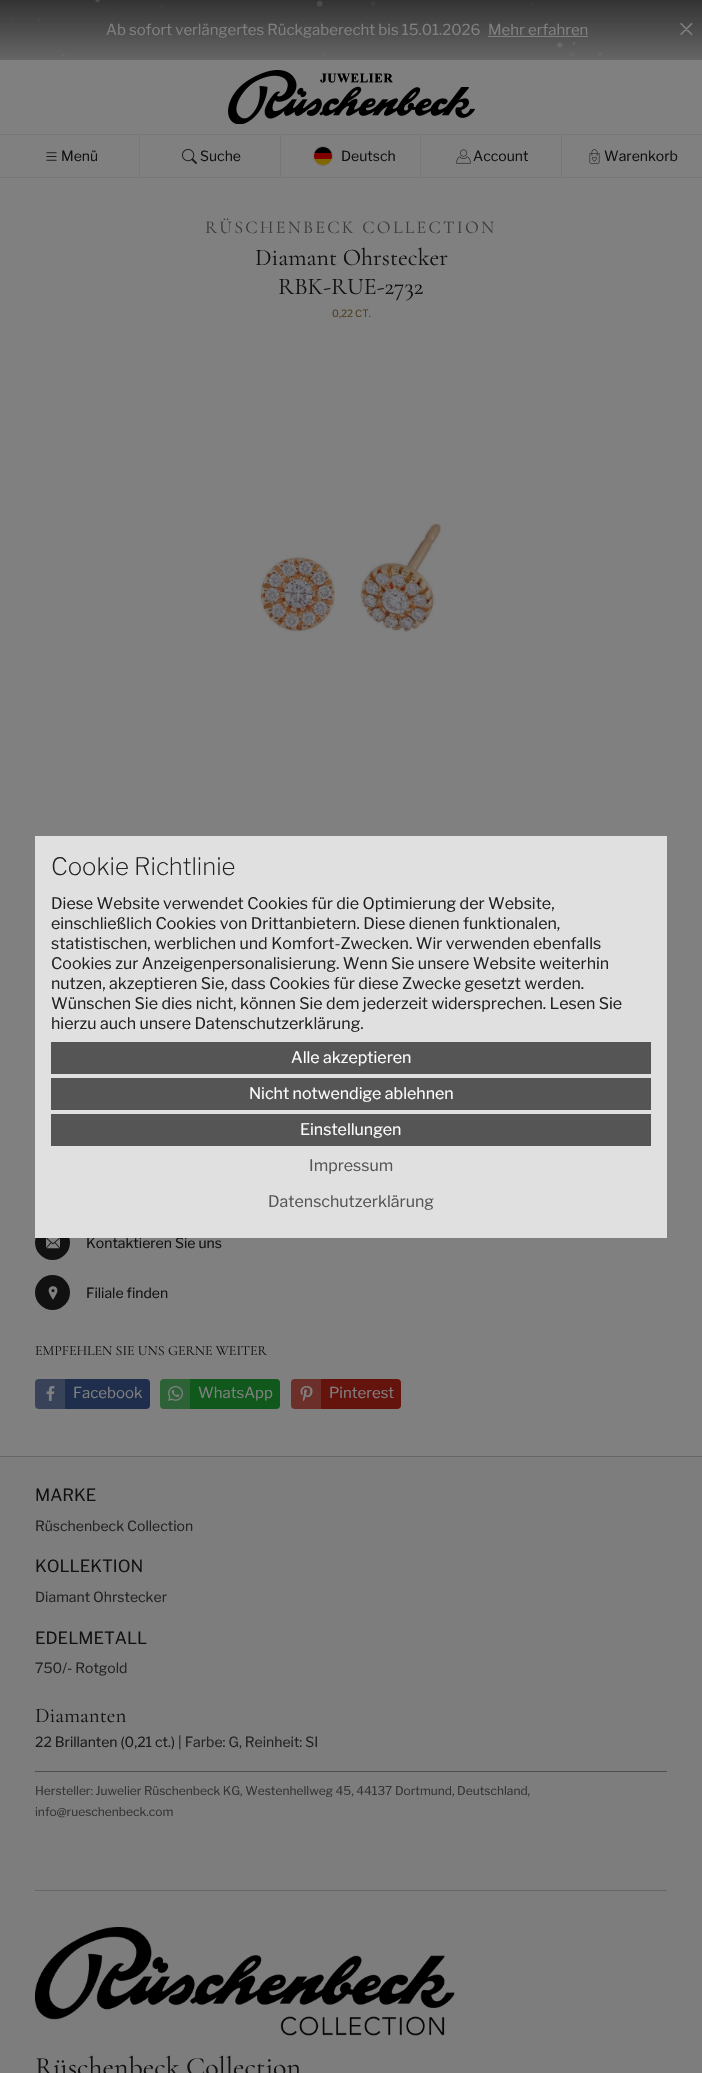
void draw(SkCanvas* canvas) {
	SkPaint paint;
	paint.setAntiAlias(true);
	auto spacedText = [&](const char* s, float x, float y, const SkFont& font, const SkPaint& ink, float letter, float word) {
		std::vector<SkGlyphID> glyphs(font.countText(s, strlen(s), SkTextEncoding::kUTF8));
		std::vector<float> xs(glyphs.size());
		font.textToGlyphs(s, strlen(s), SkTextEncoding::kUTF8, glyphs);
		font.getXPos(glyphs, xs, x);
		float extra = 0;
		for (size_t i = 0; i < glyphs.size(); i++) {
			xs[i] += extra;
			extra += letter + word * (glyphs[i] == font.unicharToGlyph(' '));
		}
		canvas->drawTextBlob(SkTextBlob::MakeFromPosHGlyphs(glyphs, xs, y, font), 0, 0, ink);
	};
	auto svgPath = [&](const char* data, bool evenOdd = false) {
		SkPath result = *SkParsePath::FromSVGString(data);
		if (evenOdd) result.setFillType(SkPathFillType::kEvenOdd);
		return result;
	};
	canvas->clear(0xff808080);
	{
		const SkColor colors[] = {0xff333333, 0xff666666};
		const float stops[] = {0, 1};
		const SkPoint ends[] = {{351, 0}, {351, 60}};
		paint.setShader(SkGradientShader::MakeLinear(ends, colors, stops, 2, SkTileMode::kClamp));
		paint.setAlpha(255);
	}
	canvas->drawRect(SkRect::MakeXYWH(0, 0, 702, 60), paint);
	canvas->drawImageRect(SkImages::DeferredFromEncodedData(SkData::MakeFromFileName("img1.png")), SkRect::MakeXYWH(11, 0, 591, 57), SkSamplingOptions());
	SkFont f1(fontMgr->matchFamilyStyle("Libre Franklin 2", SkFontStyle(100, SkFontStyle::kNormal_Width, SkFontStyle::kUpright_Slant)), 32);
	f1.setSubpixel(true);
	paint.setShader(nullptr);
	paint.setColor(0xff808080);
	canvas->drawString("×", 678, 41, f1, paint);
	SkFont f2(fontMgr->matchFamilyStyle("Libre Franklin", SkFontStyle(100, SkFontStyle::kNormal_Width, SkFontStyle::kUpright_Slant)), 15);
	f2.setSubpixel(true);
	canvas->drawString("Ab sofort verlängertes Rückgaberecht bis 15.01.2026", 106, 35, f2, paint);
	canvas->drawString("Mehr erfahren", 488, 35, f2, paint);
	canvas->drawRect(SkRect::MakeXYWH(488, 36, 100, 1), paint);
	canvas->drawImageRect(SkImages::DeferredFromEncodedData(SkData::MakeFromFileName("img2.png")), SkRect::MakeXYWH(228, 70, 247, 54), SkSamplingOptions());
	paint.setColor(0xff777777);
	canvas->drawRect(SkRect::MakeXYWH(0, 134, 702, 1), paint);
	canvas->drawRect(SkRect::MakeXYWH(0, 177, 702, 1), paint);
	canvas->drawRect(SkRect::MakeXYWH(139, 135, 1, 42), paint);
	canvas->drawImageRect(SkImages::DeferredFromEncodedData(SkData::MakeFromFileName("img3.png")), SkRect::MakeXYWH(46, 152, 11, 9), SkSamplingOptions());
	SkFont f3(fontMgr->matchFamilyStyle("Libre Franklin", SkFontStyle(100, SkFontStyle::kNormal_Width, SkFontStyle::kUpright_Slant)), 14);
	f3.setSubpixel(true);
	paint.setColor(0xff111111);
	canvas->drawString("Menü", 61, 161, f3, paint);
	paint.setColor(0xff777777);
	canvas->drawRect(SkRect::MakeXYWH(280, 135, 1, 42), paint);
	canvas->drawImageRect(SkImages::DeferredFromEncodedData(SkData::MakeFromFileName("img4.png")), SkRect::MakeXYWH(182, 149, 15, 15), SkSamplingOptions());
	paint.setColor(0xff111111);
	canvas->drawString("Suche", 200, 161, f3, paint);
	paint.setColor(0xff777777);
	canvas->drawRect(SkRect::MakeXYWH(420, 135, 1, 42), paint);
	paint.setStroke(true);
	paint.setStrokeWidth(1);
	paint.setColor(0xff73706c);
	canvas->drawCircle(323, 156, 9.5, paint);
	canvas->save();
	canvas->clipPath(svgPath("M323 147C328 147 332 151 332 156C332 161 328 165 323 165C318 165 314 161 314 156C314 151 318 147 323 147Z"), true);
	paint.setStroke(false);
	paint.setColor(0xff806600);
	canvas->drawRect(SkRect::MakeXYWH(314, 159, 18, 6), paint);
	paint.setColor(0xff000001);
	canvas->drawRect(SkRect::MakeXYWH(314, 147, 18, 6), paint);
	paint.setColor(0xff800000);
	canvas->drawRect(SkRect::MakeXYWH(314, 153, 18, 6), paint);
	canvas->restore();
	paint.setColor(0xff111111);
	canvas->drawString("Deutsch", 341, 161, f3, paint);
	paint.setColor(0xff777777);
	canvas->drawRect(SkRect::MakeXYWH(561, 135, 1, 42), paint);
	canvas->drawImageRect(SkImages::DeferredFromEncodedData(SkData::MakeFromFileName("img5.png")), SkRect::MakeXYWH(456, 149, 15, 15), SkSamplingOptions());
	paint.setColor(0xff111111);
	canvas->drawString("Account", 473, 161, f3, paint);
	canvas->drawImageRect(SkImages::DeferredFromEncodedData(SkData::MakeFromFileName("img6.png")), SkRect::MakeXYWH(589, 149, 11, 15), SkSamplingOptions());
	canvas->drawString("Warenkorb", 604, 161, f3, paint);
	SkFont f4(fontMgr->matchFamilyStyle("Cormorant Garamond", SkFontStyle::Normal()), 18);
	f4.setSubpixel(true);
	paint.setColor(0xff3b3b3b);
	spacedText("RÜSCHENBECK COLLECTION", 205, 233, f4, paint, 2.25, 0);
	SkFont f5(fontMgr->matchFamilyStyle("Cormorant Garamond", SkFontStyle::Normal()), 24);
	f5.setSubpixel(true);
	paint.setColor(0xff111111);
	canvas->drawString("Diamant Ohrstecker", 255, 265, f5, paint);
	canvas->drawString("RBK-RUE-2732", 278, 294, f5, paint);
	SkFont f6(fontMgr->matchFamilyStyle("Libre Franklin", SkFontStyle(100, SkFontStyle::kNormal_Width, SkFontStyle::kUpright_Slant)), 10);
	f6.setSubpixel(true);
	paint.setColor(0xff503d1b);
	canvas->drawString("0,22 CT.", 332, 317, f6, paint);
	canvas->drawImageRect(SkImages::DeferredFromEncodedData(SkData::MakeFromFileName("img7.png")), SkRect::MakeXYWH(259, 523, 183, 109), SkSamplingOptions());
	paint.setColor(0xff111111);
	canvas->drawCircle(52.5, 1242.5, 17.5, paint);
	canvas->drawImageRect(SkImages::DeferredFromEncodedData(SkData::MakeFromFileName("img8.png")), SkRect::MakeXYWH(46, 1238, 14, 11), SkSamplingOptions());
	canvas->drawString("Kontaktieren Sie uns", 86, 1248, f3, paint);
	canvas->drawCircle(52.5, 1292.5, 17.5, paint);
	canvas->drawImageRect(SkImages::DeferredFromEncodedData(SkData::MakeFromFileName("img9.png")), SkRect::MakeXYWH(48, 1286, 10, 14), SkSamplingOptions());
	canvas->drawString("Filiale finden", 86, 1298, f3, paint);
	SkFont f7(fontMgr->matchFamilyStyle("Cormorant Garamond", SkFontStyle::Normal()), 14);
	f7.setSubpixel(true);
	canvas->drawString("EMPFEHLEN SIE UNS GERNE WEITER", 35, 1355, f7, paint);
	paint.setColor(0xff1f2e4c);
	canvas->drawRoundRect(SkRect::MakeXYWH(35, 1379, 115, 30), 4, 4, paint);
	paint.setColor(0x40808080);
	canvas->drawRect(SkRect::MakeXYWH(35, 1379, 30, 30), paint);
	canvas->drawImageRect(SkImages::DeferredFromEncodedData(SkData::MakeFromFileName("img10.png")), SkRect::MakeXYWH(46, 1385, 9, 16), SkSamplingOptions());
	paint.setColor(0xff808080);
	canvas->drawString("Facebook", 73, 1398, f2, paint);
	paint.setColor(0xff10581c);
	canvas->drawRoundRect(SkRect::MakeXYWH(160, 1379, 120, 30), 4, 4, paint);
	paint.setColor(0x40808080);
	canvas->drawRect(SkRect::MakeXYWH(160, 1379, 30, 30), paint);
	canvas->drawImageRect(SkImages::DeferredFromEncodedData(SkData::MakeFromFileName("img11.png")), SkRect::MakeXYWH(168, 1385, 15, 16), SkSamplingOptions());
	paint.setColor(0xff808080);
	canvas->drawString("WhatsApp", 198, 1398, f2, paint);
	paint.setColor(0xff65130d);
	canvas->drawRoundRect(SkRect::MakeXYWH(291, 1379, 110, 30), 4, 4, paint);
	paint.setColor(0x40808080);
	canvas->drawRect(SkRect::MakeXYWH(291, 1379, 30, 30), paint);
	canvas->drawImageRect(SkImages::DeferredFromEncodedData(SkData::MakeFromFileName("img12.png")), SkRect::MakeXYWH(300, 1385, 13, 16), SkSamplingOptions());
	paint.setColor(0xff808080);
	canvas->drawString("Pinterest", 329, 1398, f2, paint);
	paint.setColor(0xff666666);
	canvas->drawRect(SkRect::MakeXYWH(0, 1456, 702, 1), paint);
	paint.setColor(0xff7d7d7d);
	canvas->drawRect(SkRect::MakeXYWH(0, 1457, 702, 616), paint);
	SkFont f8(fontMgr->matchFamilyStyle("Libre Franklin", SkFontStyle(100, SkFontStyle::kNormal_Width, SkFontStyle::kUpright_Slant)), 16.75);
	f8.setSubpixel(true);
	paint.setColor(0xff111111);
	canvas->drawString("MARKE", 35, 1501, f8, paint);
	paint.setColor(0xff222222);
	canvas->drawString("Rüschenbeck Collection", 35, 1531, f3, paint);
	paint.setColor(0xff111111);
	canvas->drawString("KOLLEKTION", 35, 1572, f8, paint);
	paint.setColor(0xff222222);
	canvas->drawString("Diamant Ohrstecker", 35, 1602, f3, paint);
	paint.setColor(0xff111111);
	canvas->drawString("EDELMETALL", 35, 1644, f8, paint);
	paint.setColor(0xff222222);
	canvas->drawString("750/- Rotgold", 35, 1673, f3, paint);
	SkFont f9(fontMgr->matchFamilyStyle("Cormorant Garamond", SkFontStyle::Normal()), 21);
	f9.setSubpixel(true);
	paint.setColor(0xff111111);
	canvas->drawString("Diamanten", 35, 1722, f9, paint);
	paint.setColor(0xff1a1a1a);
	canvas->drawString("22 Brillanten (0,21 ct.)", 35, 1747, f3, paint);
	paint.setColor(0xff222222);
	canvas->drawString("| Farbe: G, Reinheit: SI", 178, 1747, f3, paint);
	paint.setColor(0xff4d4d4d);
	canvas->drawRect(SkRect::MakeXYWH(35, 1771, 632, 1), paint);
	SkFont f10(fontMgr->matchFamilyStyle("Libre Franklin", SkFontStyle(100, SkFontStyle::kNormal_Width, SkFontStyle::kUpright_Slant)), 12);
	f10.setSubpixel(true);
	paint.setColor(0xff333333);
	canvas->drawString("Hersteller: Juwelier Rüschenbeck KG, Westenhellweg 45, 44137 Dortmund, Deutschland,", 35, 1795, f10, paint);
	canvas->drawString("info@rueschenbeck.com", 35, 1816, f10, paint);
	paint.setColor(0xff666666);
	canvas->drawRect(SkRect::MakeXYWH(35, 1890, 632, 1), paint);
	canvas->drawImageRect(SkImages::DeferredFromEncodedData(SkData::MakeFromFileName("img13.png")), SkRect::MakeXYWH(35, 1927, 420, 109), SkSamplingOptions());
	SkFont f11(fontMgr->matchFamilyStyle("Cormorant Garamond", SkFontStyle::Normal()), 28);
	f11.setSubpixel(true);
	paint.setColor(0xff111111);
	canvas->drawString("Rüschenbeck Collection", 35, 2076, f11, paint);
	paint.setColor(0xffe0e0e0);
	canvas->drawRect(SkRect::MakeXYWH(35, 836, 632, 402), paint);
	SkFont f12(fontMgr->matchFamilyStyle("Libre Franklin 2", SkFontStyle(100, SkFontStyle::kNormal_Width, SkFontStyle::kUpright_Slant)), 24);
	f12.setSubpixel(true);
	paint.setColor(0xff222222);
	canvas->drawString("Cookie Richtlinie", 51, 875, f12, paint);
	SkFont f13(fontMgr->matchFamilyStyle("Libre Franklin", SkFontStyle(100, SkFontStyle::kNormal_Width, SkFontStyle::kUpright_Slant)), 16);
	f13.setSubpixel(true);
	canvas->drawString("Diese Website verwendet Cookies für die Optimierung der Website,", 51, 909, f13, paint);
	canvas->drawString("einschließlich Cookies von Drittanbietern. Diese dienen funktionalen,", 51, 929, f13, paint);
	canvas->drawString("statistischen, werblichen und Komfort-Zwecken. Wir verwenden ebenfalls", 51, 949, f13, paint);
	canvas->drawString("Cookies zur Anzeigenpersonalisierung. Wenn Sie unsere Website weiterhin", 51, 969, f13, paint);
	canvas->drawString("nutzen, akzeptieren Sie, dass Cookies für diese Zwecke gesetzt werden.", 51, 989, f13, paint);
	canvas->drawString("Wünschen Sie dies nicht, können Sie dem jederzeit widersprechen. Lesen Sie", 51, 1009, f13, paint);
	canvas->drawString("hierzu auch unsere Datenschutzerklärung.", 51, 1029, f13, paint);
	paint.setColor(0xff555555);
	canvas->drawRect(SkRect::MakeXYWH(51, 1042, 600, 32), paint);
	paint.setColor(0xffffffff);
	canvas->drawString("Alle akzeptieren", 291, 1063, f13, paint);
	paint.setColor(0xff555555);
	canvas->drawRect(SkRect::MakeXYWH(51, 1078, 600, 32), paint);
	paint.setColor(0xffffffff);
	canvas->drawString("Nicht notwendige ablehnen", 249, 1099, f13, paint);
	paint.setColor(0xff555555);
	canvas->drawRect(SkRect::MakeXYWH(51, 1114, 600, 32), paint);
	paint.setColor(0xffffffff);
	canvas->drawString("Einstellungen", 300, 1135, f13, paint);
	paint.setColor(0xff555555);
	canvas->drawString("Impressum", 309, 1171, f13, paint);
	canvas->drawString("Datenschutzerklärung", 268, 1207, f13, paint);
}
